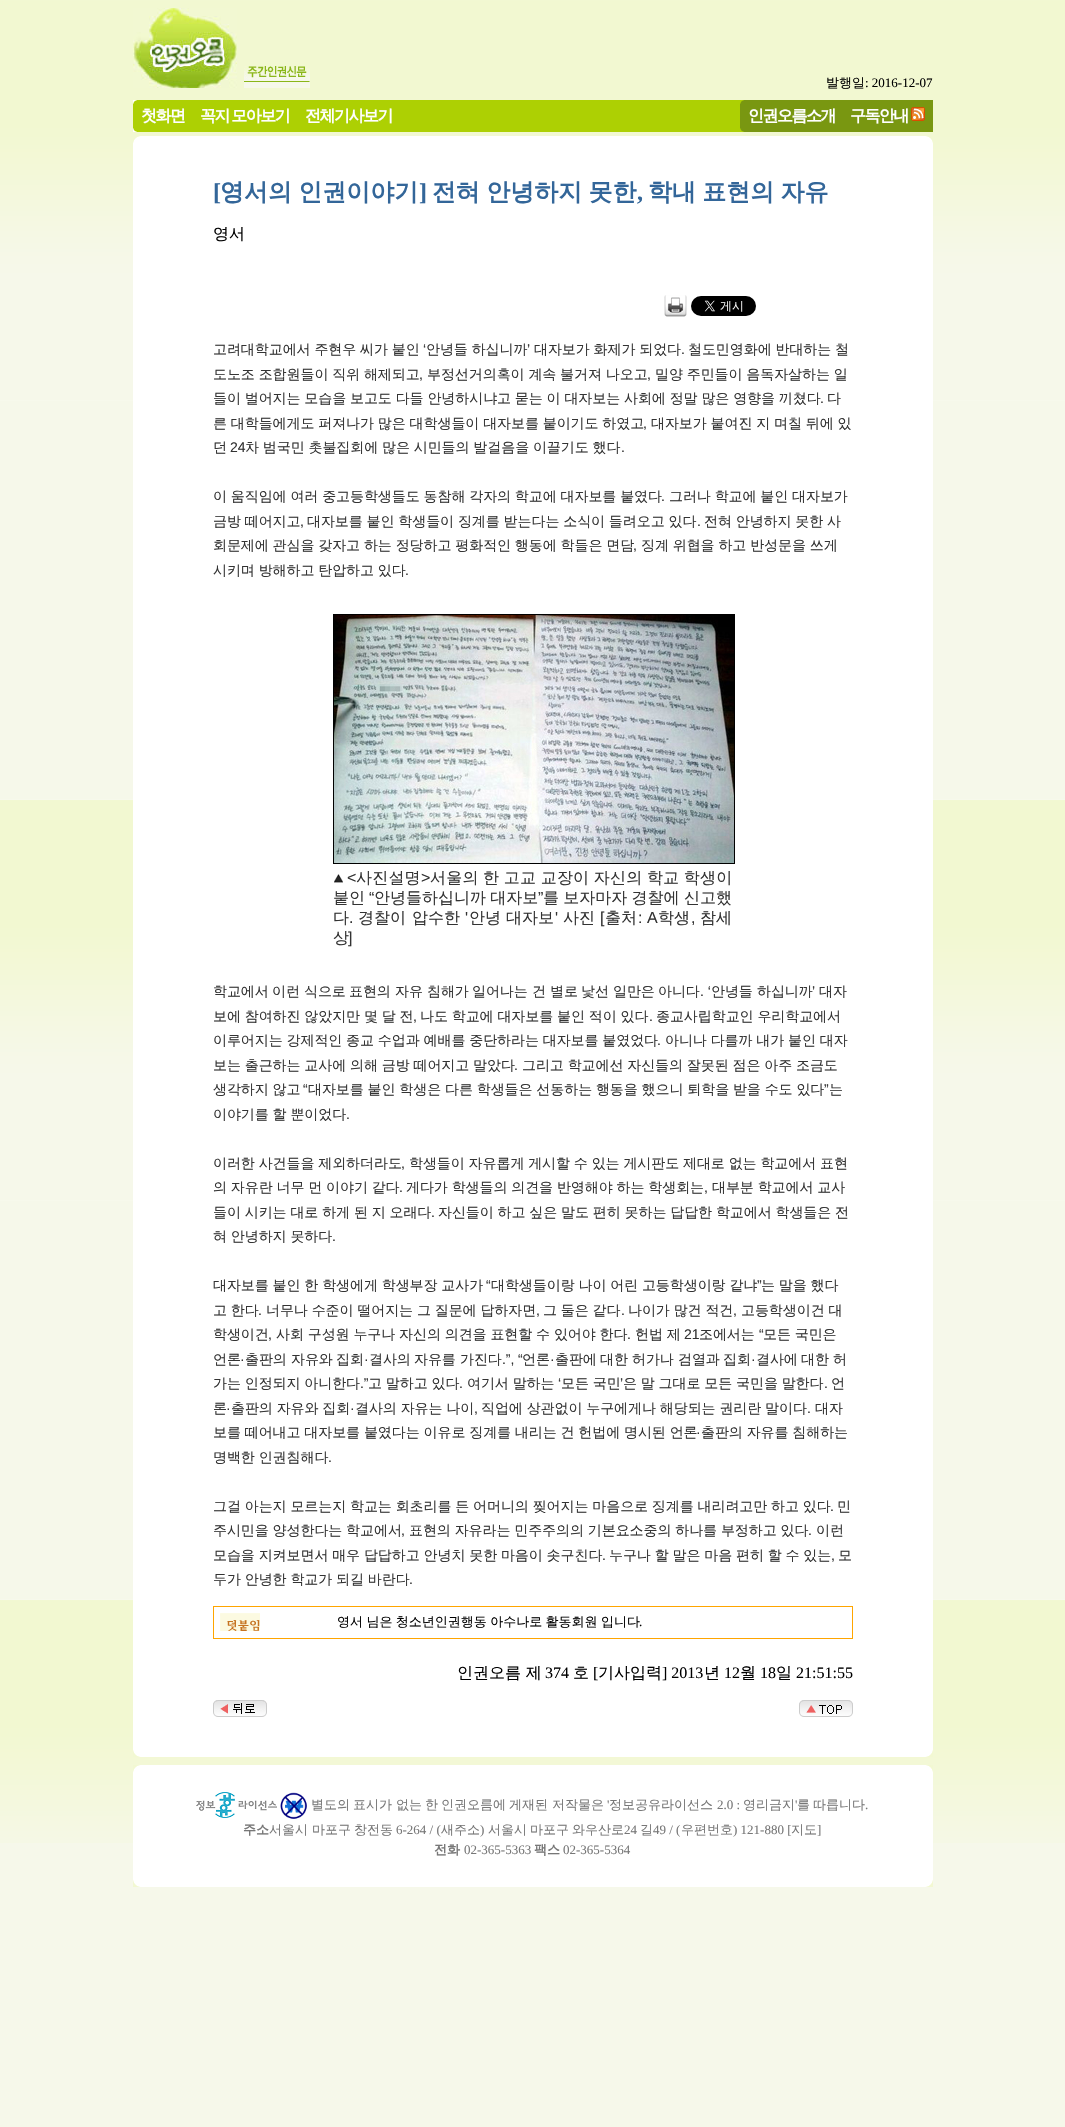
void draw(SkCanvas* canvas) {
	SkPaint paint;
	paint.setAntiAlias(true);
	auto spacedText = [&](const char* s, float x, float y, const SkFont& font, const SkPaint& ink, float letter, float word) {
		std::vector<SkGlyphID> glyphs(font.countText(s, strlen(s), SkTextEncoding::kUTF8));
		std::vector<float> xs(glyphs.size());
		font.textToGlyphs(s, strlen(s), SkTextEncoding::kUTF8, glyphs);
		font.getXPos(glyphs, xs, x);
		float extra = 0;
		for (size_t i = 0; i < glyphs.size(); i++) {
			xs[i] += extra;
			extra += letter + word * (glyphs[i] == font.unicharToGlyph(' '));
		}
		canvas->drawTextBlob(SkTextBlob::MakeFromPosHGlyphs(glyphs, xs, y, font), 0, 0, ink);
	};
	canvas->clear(0xfff6f8ea);
	canvas->drawImageRect(SkImages::DeferredFromEncodedData(SkData::MakeFromFileName("img1.png")), SkRect::MakeXYWH(0, 0, 1065, 1843), SkSamplingOptions());
	canvas->drawImageRect(SkImages::DeferredFromEncodedData(SkData::MakeFromFileName("img2.png")), SkRect::MakeXYWH(133, 8, 104, 80), SkSamplingOptions());
	canvas->drawImageRect(SkImages::DeferredFromEncodedData(SkData::MakeFromFileName("img3.png")), SkRect::MakeXYWH(244, 66, 66, 22), SkSamplingOptions());
	SkFont f1(fontMgr->matchFamilyStyle("WenQuanYi Zen Hei", SkFontStyle(500, SkFontStyle::kNormal_Width, SkFontStyle::kUpright_Slant)), 13);
	f1.setSubpixel(true);
	paint.setColor(0xff000000);
	canvas->drawString("발행일", 826, 87, f1, paint);
	SkFont f2(fontMgr->matchFamilyStyle("Liberation Serif", SkFontStyle::Normal()), 13);
	f2.setSubpixel(true);
	canvas->drawString(": 2016-12-07", 865, 87, f2, paint);
	canvas->drawImageRect(SkImages::DeferredFromEncodedData(SkData::MakeFromFileName("img4.png")), SkRect::MakeXYWH(133, 100, 607, 32), SkSamplingOptions());
	SkFont f3(fontMgr->matchFamilyStyle("WenQuanYi Zen Hei", SkFontStyle::Bold()), 16);
	f3.setSubpixel(true);
	paint.setColor(0xffffffff);
	spacedText("첫화면", 141, 121, f3, paint, -1.5, 0);
	spacedText("꼭지 모아보기", 200, 121, f3, paint, -1.5, -1);
	spacedText("전체기사보기", 305, 121, f3, paint, -1.5, 0);
	canvas->drawImageRect(SkImages::DeferredFromEncodedData(SkData::MakeFromFileName("img5.png")), SkRect::MakeXYWH(740, 100, 193, 32), SkSamplingOptions());
	spacedText("인권오름소개", 748, 121, f3, paint, -1.5, 0);
	spacedText("구독안내", 850, 121, f3, paint, -1.5, 0);
	canvas->drawImageRect(SkImages::DeferredFromEncodedData(SkData::MakeFromFileName("img6.png")), SkRect::MakeXYWH(911, 107, 14, 14), SkSamplingOptions());
	canvas->drawImageRect(SkImages::DeferredFromEncodedData(SkData::MakeFromFileName("img7.png")), SkRect::MakeXYWH(133, 136, 8, 8), SkSamplingOptions());
	canvas->drawRect(SkRect::MakeXYWH(141, 136, 784, 8), paint);
	canvas->drawImageRect(SkImages::DeferredFromEncodedData(SkData::MakeFromFileName("img8.png")), SkRect::MakeXYWH(925, 136, 8, 8), SkSamplingOptions());
	canvas->drawRect(SkRect::MakeXYWH(133, 144, 800, 1605), paint);
	SkFont f4(fontMgr->matchFamilyStyle("Liberation Serif", SkFontStyle::Bold()), 24);
	f4.setSubpixel(true);
	paint.setColor(0xff336699);
	canvas->drawString("[", 213, 200, f4, paint);
	SkFont f5(fontMgr->matchFamilyStyle("WenQuanYi Zen Hei", SkFontStyle::Bold()), 24);
	f5.setSubpixel(true);
	spacedText("영서의 인권이야기", 220, 200, f5, paint, 0, -1);
	canvas->drawString("]", 419, 200, f4, paint);
	spacedText("전혀 안녕하지 못한", 432, 200, f5, paint, 0, -1);
	canvas->drawString(",", 637, 200, f4, paint);
	spacedText("학내 표현의 자유", 648, 200, f5, paint, 0, -1);
	SkFont f6(fontMgr->matchFamilyStyle("WenQuanYi Zen Hei", SkFontStyle(500, SkFontStyle::kNormal_Width, SkFontStyle::kUpright_Slant)), 16);
	f6.setSubpixel(true);
	paint.setColor(0xff000000);
	canvas->drawString("영서", 213, 239, f6, paint);
	canvas->drawImageRect(SkImages::DeferredFromEncodedData(SkData::MakeFromFileName("img9.png")), SkRect::MakeXYWH(664, 295, 23, 22), SkSamplingOptions());
	canvas->drawImageRect(SkImages::DeferredFromEncodedData(SkData::MakeFromFileName("img10.png")), SkRect::MakeXYWH(691, 296, 65, 20), SkSamplingOptions());
	SkFont f7(fontMgr->matchFamilyStyle("WenQuanYi Zen Hei", SkFontStyle(500, SkFontStyle::kNormal_Width, SkFontStyle::kUpright_Slant)), 14);
	f7.setSubpixel(true);
	paint.setColor(0xff333333);
	spacedText("고려대학교에서 주현우 씨가 붙인", 213, 354, f7, paint, -0.07, -0.25);
	SkFont f8(fontMgr->matchFamilyStyle("Liberation Sans", SkFontStyle::Normal()), 14);
	f8.setSubpixel(true);
	spacedText("‘", 423, 354, f8, paint, -0.07, 0);
	spacedText("안녕들 하십니까", 426, 354, f7, paint, -0.07, -0.25);
	spacedText("’", 527, 354, f8, paint, -0.07, 0);
	spacedText("대자보가 화제가 되었다", 534, 354, f7, paint, -0.07, -0.25);
	spacedText("철도민영화에 반대하는 철", 688, 354, f7, paint, -0.07, -0.25);
	spacedText(".", 681, 354, f8, paint, -0.07, 0);
	spacedText("도노조 조합원들이 직위 해제되고", 213, 379, f7, paint, -0.07, -0.25);
	spacedText(",", 419, 379, f8, paint, -0.07, 0);
	spacedText("부정선거의혹이 계속 불거져 나오고", 427, 379, f7, paint, -0.07, -0.25);
	spacedText(",", 647, 379, f8, paint, -0.07, 0);
	spacedText("밀양 주민들이 음독자살하는 일", 655, 379, f7, paint, -0.07, -0.25);
	spacedText("들이 벌어지는 모습을 보고도 다들 안녕하시냐고 묻는 이 대자보는 사회에 정말 많은 영향을 끼쳤다", 213, 403, f7, paint, -0.07, -0.25);
	spacedText(".", 820, 403, f8, paint, -0.07, 0);
	spacedText("다", 827, 403, f7, paint, -0.07, 0);
	spacedText("른 대학들에게도 퍼져나가 많은 대학생들이 대자보를 붙이기도 하였고", 213, 428, f7, paint, -0.07, -0.25);
	spacedText(",", 643, 428, f8, paint, -0.07, 0);
	spacedText("대자보가 붙여진 지 며칠 뒤에 있", 651, 428, f7, paint, -0.07, -0.25);
	spacedText("던", 213, 452, f7, paint, -0.07, 0);
	spacedText("24", 230, 452, f8, paint, -0.07, 0);
	spacedText("차 범국민 촛불집회에 많은 시민들의 발걸음을 이끌기도 했다", 245, 452, f7, paint, -0.07, -0.25);
	spacedText(".", 621, 452, f8, paint, -0.07, 0);
	spacedText("이 움직임에 여러 중고등학생들도 동참해 각자의 학교에 대자보를 붙였다", 213, 501, f7, paint, -0.07, -0.25);
	spacedText(".", 661, 501, f8, paint, -0.07, 0);
	spacedText("그러나 학교에 붙인 대자보가", 669, 501, f7, paint, -0.07, -0.25);
	spacedText("금방 떼어지고", 213, 526, f7, paint, -0.07, -0.25);
	spacedText(",", 300, 526, f8, paint, -0.07, 0);
	spacedText("대자보를 붙인 학생들이 징계를 받는다는 소식이 들려오고 있다", 307, 526, f7, paint, -0.07, -0.25);
	spacedText(".", 697, 526, f8, paint, -0.07, 0);
	spacedText("전혀 안녕하지 못한 사", 704, 526, f7, paint, -0.07, -0.25);
	spacedText("회문제에 관심을 갖자고 하는 정당하고 평화적인 행동에 학들은 면담", 213, 550, f7, paint, -0.07, -0.25);
	spacedText(",", 633, 550, f8, paint, -0.07, 0);
	spacedText("징계 위협을 하고 반성문을 쓰게", 641, 550, f7, paint, -0.07, -0.25);
	spacedText("시키며 방해하고 탄압하고 있다", 213, 575, f7, paint, -0.07, -0.25);
	spacedText(".", 405, 575, f8, paint, -0.07, 0);
	paint.setStroke(true);
	paint.setStrokeWidth(1);
	paint.setColor(0xff000000);
	canvas->drawRect(SkRect::MakeXYWH(333.5, 614.5, 401, 249), paint);
	canvas->drawImageRect(SkImages::DeferredFromEncodedData(SkData::MakeFromFileName("img11.png")), SkRect::MakeXYWH(334, 615, 400, 248), SkSamplingOptions());
	canvas->drawImageRect(SkImages::DeferredFromEncodedData(SkData::MakeFromFileName("img12.png")), SkRect::MakeXYWH(334, 874, 9, 9), SkSamplingOptions());
	SkFont f9(fontMgr->matchFamilyStyle("Liberation Sans", SkFontStyle::Normal()), 16);
	f9.setSubpixel(true);
	paint.setStroke(false);
	paint.setColor(0xff333333);
	spacedText("<", 347, 883, f9, paint, 0.2, 0);
	spacedText("사진설명", 356, 883, f6, paint, 0.2, 0);
	spacedText(">", 421, 883, f9, paint, 0.2, 0);
	spacedText("서울의 한 고교 교장이 자신의 학교 학생이", 430, 883, f6, paint, 0.2, -0.5);
	canvas->drawString("붙인", 333, 903, f6, paint);
	canvas->drawString("“", 369, 903, f9, paint);
	spacedText("안녕들하십니까 대자보", 374, 903, f6, paint, 0, -0.5);
	canvas->drawString("”", 538, 903, f9, paint);
	spacedText("를 보자마자 경찰에 신고했", 543, 903, f6, paint, 0, -0.5);
	canvas->drawString("다", 333, 923, f6, paint);
	canvas->drawString(".", 349, 923, f9, paint);
	canvas->drawString("경찰이", 358, 923, f6, paint);
	canvas->drawString("압수한", 412, 923, f6, paint);
	canvas->drawString("'", 465, 923, f9, paint);
	canvas->drawString("안녕", 469, 923, f6, paint);
	canvas->drawString("대자보", 506, 923, f6, paint);
	canvas->drawString("'", 555, 923, f9, paint);
	canvas->drawString("사진", 563, 923, f6, paint);
	canvas->drawString("[", 600, 923, f9, paint);
	canvas->drawString("출처", 605, 923, f6, paint);
	canvas->drawString(": A", 638, 923, f9, paint);
	canvas->drawString("학생", 658, 923, f6, paint);
	canvas->drawString(",", 691, 923, f9, paint);
	canvas->drawString("참세", 700, 923, f6, paint);
	spacedText("상", 333, 943, f6, paint, -0.07, 0);
	spacedText("]", 348, 943, f9, paint, -0.07, 0);
	spacedText("학교에서", 213, 996, f7, paint, -0.07, 0);
	spacedText("이런", 272, 996, f7, paint, -0.07, 0);
	spacedText("식으로", 304, 996, f7, paint, -0.07, 0);
	spacedText("표현의", 349, 996, f7, paint, -0.07, 0);
	spacedText("자유", 395, 996, f7, paint, -0.07, 0);
	spacedText("침해가", 427, 996, f7, paint, -0.07, 0);
	spacedText("일어나는", 472, 996, f7, paint, -0.07, 0);
	spacedText("건", 532, 996, f7, paint, -0.07, 0);
	spacedText("별로", 550, 996, f7, paint, -0.07, 0);
	spacedText("낯선", 581, 996, f7, paint, -0.07, 0);
	spacedText("일만은", 613, 996, f7, paint, -0.07, 0);
	spacedText("아니다", 658, 996, f7, paint, -0.07, 0);
	spacedText(". ‘", 700, 996, f8, paint, -0.07, 0);
	spacedText("안녕들", 711, 996, f7, paint, -0.07, 0);
	spacedText("하십니까", 757, 996, f7, paint, -0.07, 0);
	spacedText("’", 812, 996, f8, paint, -0.07, 0);
	spacedText("대자", 819, 996, f7, paint, -0.07, 0);
	spacedText("보에 참여하진 않았지만 몇 달 전", 213, 1021, f7, paint, -0.07, -0.25);
	spacedText(",", 413, 1021, f8, paint, -0.07, 0);
	spacedText("나도 학교에 대자보를 붙인 적이 있다", 420, 1021, f7, paint, -0.07, -0.25);
	spacedText(".", 649, 1021, f8, paint, -0.07, 0);
	spacedText("종교사립학교인 우리학교에서", 656, 1021, f7, paint, -0.07, -0.25);
	spacedText("이루어지는 강제적인 종교 수업과 예배를 중단하라는 대자보를 붙였었다", 213, 1045, f7, paint, -0.07, -0.25);
	spacedText(".", 657, 1045, f8, paint, -0.07, 0);
	spacedText("아니나 다를까 내가 붙인 대자", 665, 1045, f7, paint, -0.07, -0.25);
	spacedText("보는 출근하는 교사에 의해 금방 떼어지고 말았다", 213, 1070, f7, paint, -0.07, -0.25);
	spacedText(".", 514, 1070, f8, paint, -0.07, 0);
	spacedText("그리고 학교에선 자신들의 잘못된 점은 아주 조금도", 522, 1070, f7, paint, -0.07, -0.25);
	spacedText("생각하지 않고", 213, 1094, f7, paint, -0.07, -0.25);
	spacedText("“", 303, 1094, f8, paint, -0.07, 0);
	spacedText("대자보를 붙인 학생은 다른 학생들은 선동하는 행동을 했으니 퇴학을 받을 수도 있다", 308, 1094, f7, paint, -0.07, -0.25);
	spacedText("”", 824, 1094, f8, paint, -0.07, 0);
	spacedText("는", 829, 1094, f7, paint, -0.07, 0);
	spacedText("이야기를 할 뿐이었다", 213, 1119, f7, paint, -0.07, -0.25);
	spacedText(".", 346, 1119, f8, paint, -0.07, 0);
	spacedText("이러한 사건들을 제외하더라도", 213, 1168, f7, paint, -0.07, -0.25);
	spacedText(",", 401, 1168, f8, paint, -0.07, 0);
	spacedText("학생들이 자유롭게 게시할 수 있는 게시판도 제대로 없는 학교에서 표현", 409, 1168, f7, paint, -0.07, -0.25);
	spacedText("의 자유란 너무 먼 이야기 같다", 213, 1192, f7, paint, -0.07, -0.25);
	spacedText(".", 399, 1192, f8, paint, -0.07, 0);
	spacedText("게다가 학생들의 의견을 반영해야 하는 학생회는", 406, 1192, f7, paint, -0.07, -0.25);
	spacedText(",", 704, 1192, f8, paint, -0.07, 0);
	spacedText("대부분 학교에서 교사", 712, 1192, f7, paint, -0.07, -0.25);
	spacedText("들이 시키는 대로 하게 된 지 오래다", 213, 1217, f7, paint, -0.07, -0.25);
	spacedText(".", 431, 1217, f8, paint, -0.07, 0);
	spacedText("자신들이 하고 싶은 말도 편히 못하는 답답한 학교에서 학생들은 전", 438, 1217, f7, paint, -0.07, -0.25);
	spacedText("혀 안녕하지 못하다", 213, 1241, f7, paint, -0.07, -0.25);
	spacedText(".", 332, 1241, f8, paint, -0.07, 0);
	spacedText("대자보를 붙인 한 학생에게 학생부장 교사가", 213, 1290, f7, paint, -0.07, -0.25);
	spacedText("“", 486, 1290, f8, paint, -0.07, 0);
	spacedText("대학생들이랑 나이 어린 고등학생이랑 같냐", 491, 1290, f7, paint, -0.07, -0.25);
	spacedText("”", 757, 1290, f8, paint, -0.07, 0);
	spacedText("는 말을 했다", 761, 1290, f7, paint, -0.07, -0.25);
	spacedText("고 한다", 213, 1315, f7, paint, -0.07, -0.25);
	spacedText(".", 258, 1315, f8, paint, -0.07, 0);
	spacedText("너무나 수준이 떨어지는 그 질문에 답하자면", 266, 1315, f7, paint, -0.07, -0.25);
	spacedText(",", 536, 1315, f8, paint, -0.07, 0);
	spacedText("그 둘은 같다", 543, 1315, f7, paint, -0.07, -0.25);
	spacedText(".", 621, 1315, f8, paint, -0.07, 0);
	spacedText("나이가 많건 적건", 628, 1315, f7, paint, -0.07, -0.25);
	spacedText(",", 733, 1315, f8, paint, -0.07, 0);
	spacedText("고등학생이건 대", 741, 1315, f7, paint, -0.07, -0.25);
	spacedText("학생이건", 213, 1339, f7, paint, -0.07, 0);
	spacedText("사회 구성원 누구나 자신의 의견을 표현할 수 있어야 한다", 276, 1339, f7, paint, -0.07, -0.25);
	spacedText("헌법 제", 635, 1339, f7, paint, -0.07, -0.25);
	spacedText("21", 684, 1339, f8, paint, -0.07, 0);
	spacedText("조에서는", 699, 1339, f7, paint, -0.07, 0);
	spacedText("“", 759, 1339, f8, paint, -0.07, 0);
	spacedText("모든 국민은", 763, 1339, f7, paint, -0.07, -0.25);
	spacedText(",", 268, 1339, f8, paint, -0.07, 0);
	spacedText(".", 627, 1339, f8, paint, -0.07, 0);
	spacedText("언론", 213, 1364, f7, paint, -0.07, 0);
	spacedText("·", 240, 1364, f8, paint, -0.07, 0);
	spacedText("출판의", 245, 1364, f7, paint, -0.07, 0);
	spacedText("자유와", 291, 1364, f7, paint, -0.07, 0);
	spacedText("집회", 336, 1364, f7, paint, -0.07, 0);
	spacedText("·", 364, 1364, f8, paint, -0.07, 0);
	spacedText("결사의", 369, 1364, f7, paint, -0.07, 0);
	spacedText("자유를", 414, 1364, f7, paint, -0.07, 0);
	spacedText("가진다", 460, 1364, f7, paint, -0.07, 0);
	spacedText(".”, “", 502, 1364, f8, paint, -0.07, 0);
	spacedText("언론", 522, 1364, f7, paint, -0.07, 0);
	spacedText("·", 550, 1364, f8, paint, -0.07, 0);
	spacedText("출판에", 555, 1364, f7, paint, -0.07, 0);
	spacedText("대한", 600, 1364, f7, paint, -0.07, 0);
	spacedText("허가나", 632, 1364, f7, paint, -0.07, 0);
	spacedText("검열과", 678, 1364, f7, paint, -0.07, 0);
	spacedText("집회", 723, 1364, f7, paint, -0.07, 0);
	spacedText("·", 751, 1364, f8, paint, -0.07, 0);
	spacedText("결사에", 756, 1364, f7, paint, -0.07, 0);
	spacedText("대한", 801, 1364, f7, paint, -0.07, 0);
	spacedText("허", 833, 1364, f7, paint, -0.07, 0);
	spacedText("가는 인정되지 아니한다", 213, 1388, f7, paint, -0.07, -0.25);
	spacedText(".”", 360, 1388, f8, paint, -0.07, 0);
	spacedText("고 말하고 있다", 368, 1388, f7, paint, -0.07, -0.25);
	spacedText("여기서 말하는", 467, 1388, f7, paint, -0.07, -0.25);
	spacedText("‘", 558, 1388, f8, paint, -0.07, 0);
	spacedText("모든 국민", 561, 1388, f7, paint, -0.07, -0.25);
	spacedText("’", 620, 1388, f8, paint, -0.07, 0);
	spacedText("은 말 그대로 모든 국민을 말한다", 623, 1388, f7, paint, -0.07, -0.25);
	spacedText("언", 831, 1388, f7, paint, -0.07, 0);
	spacedText(".", 459, 1388, f8, paint, -0.07, 0);
	spacedText(".", 824, 1388, f8, paint, -0.07, 0);
	spacedText("론", 213, 1413, f7, paint, -0.07, 0);
	spacedText("·", 226, 1413, f8, paint, -0.07, 0);
	spacedText("출판의 자유와 집회", 231, 1413, f7, paint, -0.07, -0.25);
	spacedText("·", 350, 1413, f8, paint, -0.07, 0);
	spacedText("결사의 자유는 나이", 355, 1413, f7, paint, -0.07, -0.25);
	spacedText("직업에 상관없이 누구에게나 해당되는 권리란 말이다", 481, 1413, f7, paint, -0.07, -0.25);
	spacedText("대자", 815, 1413, f7, paint, -0.07, 0);
	spacedText(",", 474, 1413, f8, paint, -0.07, 0);
	spacedText(".", 807, 1413, f8, paint, -0.07, 0);
	spacedText("보를 떼어내고 대자보를 붙였다는 이유로 징계를 내리는 건 헌법에 명시된 언론", 213, 1437, f7, paint, -0.07, -0.25);
	spacedText("·", 696, 1437, f8, paint, -0.07, 0);
	spacedText("출판의 자유를 침해하는", 701, 1437, f7, paint, -0.07, -0.25);
	spacedText("명백한 인권침해다", 213, 1462, f7, paint, -0.07, -0.25);
	spacedText(".", 328, 1462, f8, paint, -0.07, 0);
	spacedText("그걸 아는지 모르는지 학교는 회초리를 든 어머니의 찢어지는 마음으로 징계를 내리려고만 하고 있다", 213, 1511, f7, paint, -0.07, -0.25);
	spacedText(".", 830, 1511, f8, paint, -0.07, 0);
	spacedText("민", 837, 1511, f7, paint, -0.07, 0);
	spacedText("주시민을 양성한다는 학교에서", 213, 1535, f7, paint, -0.07, -0.25);
	spacedText(",", 401, 1535, f8, paint, -0.07, 0);
	spacedText("표현의 자유라는 민주주의의 기본요소중의 하나를 부정하고 있다", 409, 1535, f7, paint, -0.07, -0.25);
	spacedText(".", 808, 1535, f8, paint, -0.07, 0);
	spacedText("이런", 816, 1535, f7, paint, -0.07, 0);
	spacedText("모습을 지켜보면서 매우 답답하고 안녕치 못한 마음이 솟구친다", 213, 1560, f7, paint, -0.07, -0.25);
	spacedText(".", 602, 1560, f8, paint, -0.07, 0);
	spacedText("누구나 할 말은 마음 편히 할 수 있는", 609, 1560, f7, paint, -0.07, -0.25);
	spacedText(",", 831, 1560, f8, paint, -0.07, 0);
	spacedText("모", 838, 1560, f7, paint, -0.07, 0);
	spacedText("두가 안녕한 학교가 되길 바란다", 213, 1584, f7, paint, -0.07, -0.25);
	spacedText(".", 409, 1584, f8, paint, -0.07, 0);
	paint.setStroke(true);
	paint.setColor(0xffffa500);
	canvas->drawRect(SkRect::MakeXYWH(213.5, 1606.5, 639, 32), paint);
	canvas->drawImageRect(SkImages::DeferredFromEncodedData(SkData::MakeFromFileName("img13.png")), SkRect::MakeXYWH(220, 1613, 40, 18), SkSamplingOptions());
	paint.setStroke(false);
	paint.setColor(0xff000000);
	spacedText("영서 님은 청소년인권행동 아수나로 활동회원 입니다", 337, 1626, f1, paint, 0, -0.5);
	canvas->drawString(".", 639, 1626, f2, paint);
	canvas->drawString("인권오름 제", 457, 1678, f6, paint);
	SkFont f10(fontMgr->matchFamilyStyle("Liberation Serif", SkFontStyle::Normal()), 16);
	f10.setSubpixel(true);
	canvas->drawString("374", 545, 1678, f10, paint);
	canvas->drawString("호", 573, 1678, f6, paint);
	canvas->drawString("[", 593, 1678, f10, paint);
	canvas->drawString("기사입력", 598, 1678, f6, paint);
	canvas->drawString("] 2013", 662, 1678, f10, paint);
	canvas->drawString("년", 704, 1678, f6, paint);
	canvas->drawString("12", 724, 1678, f10, paint);
	canvas->drawString("월", 740, 1678, f6, paint);
	canvas->drawString("18", 760, 1678, f10, paint);
	canvas->drawString("일", 776, 1678, f6, paint);
	canvas->drawString("21:51:55", 796, 1678, f10, paint);
	canvas->drawImageRect(SkImages::DeferredFromEncodedData(SkData::MakeFromFileName("img14.png")), SkRect::MakeXYWH(213, 1700, 54, 17), SkSamplingOptions());
	canvas->drawImageRect(SkImages::DeferredFromEncodedData(SkData::MakeFromFileName("img15.png")), SkRect::MakeXYWH(799, 1700, 54, 17), SkSamplingOptions());
	canvas->drawImageRect(SkImages::DeferredFromEncodedData(SkData::MakeFromFileName("img16.png")), SkRect::MakeXYWH(133, 1749, 8, 8), SkSamplingOptions());
	paint.setColor(0xffffffff);
	canvas->drawRect(SkRect::MakeXYWH(141, 1749, 784, 8), paint);
	canvas->drawImageRect(SkImages::DeferredFromEncodedData(SkData::MakeFromFileName("img17.png")), SkRect::MakeXYWH(925, 1749, 8, 8), SkSamplingOptions());
	canvas->drawImageRect(SkImages::DeferredFromEncodedData(SkData::MakeFromFileName("img7.png")), SkRect::MakeXYWH(133, 1765, 8, 8), SkSamplingOptions());
	canvas->drawRect(SkRect::MakeXYWH(141, 1765, 784, 8), paint);
	canvas->drawImageRect(SkImages::DeferredFromEncodedData(SkData::MakeFromFileName("img8.png")), SkRect::MakeXYWH(925, 1765, 8, 8), SkSamplingOptions());
	canvas->drawRect(SkRect::MakeXYWH(133, 1773, 800, 106), paint);
	canvas->drawImageRect(SkImages::DeferredFromEncodedData(SkData::MakeFromFileName("img18.png")), SkRect::MakeXYWH(196, 1792, 81, 26), SkSamplingOptions());
	canvas->drawImageRect(SkImages::DeferredFromEncodedData(SkData::MakeFromFileName("img19.png")), SkRect::MakeXYWH(280, 1792, 27, 27), SkSamplingOptions());
	paint.setColor(0xff777777);
	canvas->drawString("별도의", 311, 1809, f1, paint);
	canvas->drawString("표시가", 353, 1809, f1, paint);
	canvas->drawString("없는", 396, 1809, f1, paint);
	canvas->drawString("한", 425, 1809, f1, paint);
	canvas->drawString("인권오름에", 441, 1809, f1, paint);
	canvas->drawString("게재된", 509, 1809, f1, paint);
	canvas->drawString("저작물은", 552, 1809, f1, paint);
	canvas->drawString("'", 607, 1809, f2, paint);
	canvas->drawString("정보공유라이선스", 609, 1809, f1, paint);
	canvas->drawString("2.0 :", 717, 1809, f2, paint);
	canvas->drawString("영리금지", 743, 1809, f1, paint);
	canvas->drawString("'", 795, 1809, f2, paint);
	canvas->drawString("를", 797, 1809, f1, paint);
	canvas->drawString("따릅니다", 813, 1809, f1, paint);
	canvas->drawString(".", 865, 1809, f2, paint);
	SkFont f11(fontMgr->matchFamilyStyle("WenQuanYi Zen Hei", SkFontStyle::Bold()), 13);
	f11.setSubpixel(true);
	canvas->drawString("주소", 243, 1834, f11, paint);
	canvas->drawString("서울시", 269, 1834, f1, paint);
	canvas->drawString("마포구", 312, 1834, f1, paint);
	canvas->drawString("창전동", 354, 1834, f1, paint);
	canvas->drawString("6-264 / (", 396, 1834, f2, paint);
	canvas->drawString("새주소", 441, 1834, f1, paint);
	canvas->drawString(")", 480, 1834, f2, paint);
	canvas->drawString("서울시", 488, 1834, f1, paint);
	canvas->drawString("마포구", 530, 1834, f1, paint);
	canvas->drawString("와우산로", 572, 1834, f1, paint);
	canvas->drawString("24", 624, 1834, f2, paint);
	canvas->drawString("길", 640, 1834, f1, paint);
	canvas->drawString("49 / (", 653, 1834, f2, paint);
	canvas->drawString("우편번호", 681, 1834, f1, paint);
	canvas->drawString(") 121-880 [", 733, 1834, f2, paint);
	canvas->drawString("지도", 791, 1834, f1, paint);
	canvas->drawString("]", 817, 1834, f2, paint);
	canvas->drawString("전화", 434, 1854, f11, paint);
	canvas->drawString("02-365-5363", 464, 1854, f2, paint);
	canvas->drawString("팩스", 534, 1854, f11, paint);
	canvas->drawString("02-365-5364", 563, 1854, f2, paint);
	canvas->drawImageRect(SkImages::DeferredFromEncodedData(SkData::MakeFromFileName("img16.png")), SkRect::MakeXYWH(133, 1879, 8, 8), SkSamplingOptions());
	paint.setColor(0xffffffff);
	canvas->drawRect(SkRect::MakeXYWH(141, 1879, 784, 8), paint);
	canvas->drawImageRect(SkImages::DeferredFromEncodedData(SkData::MakeFromFileName("img17.png")), SkRect::MakeXYWH(925, 1879, 8, 8), SkSamplingOptions());
}
